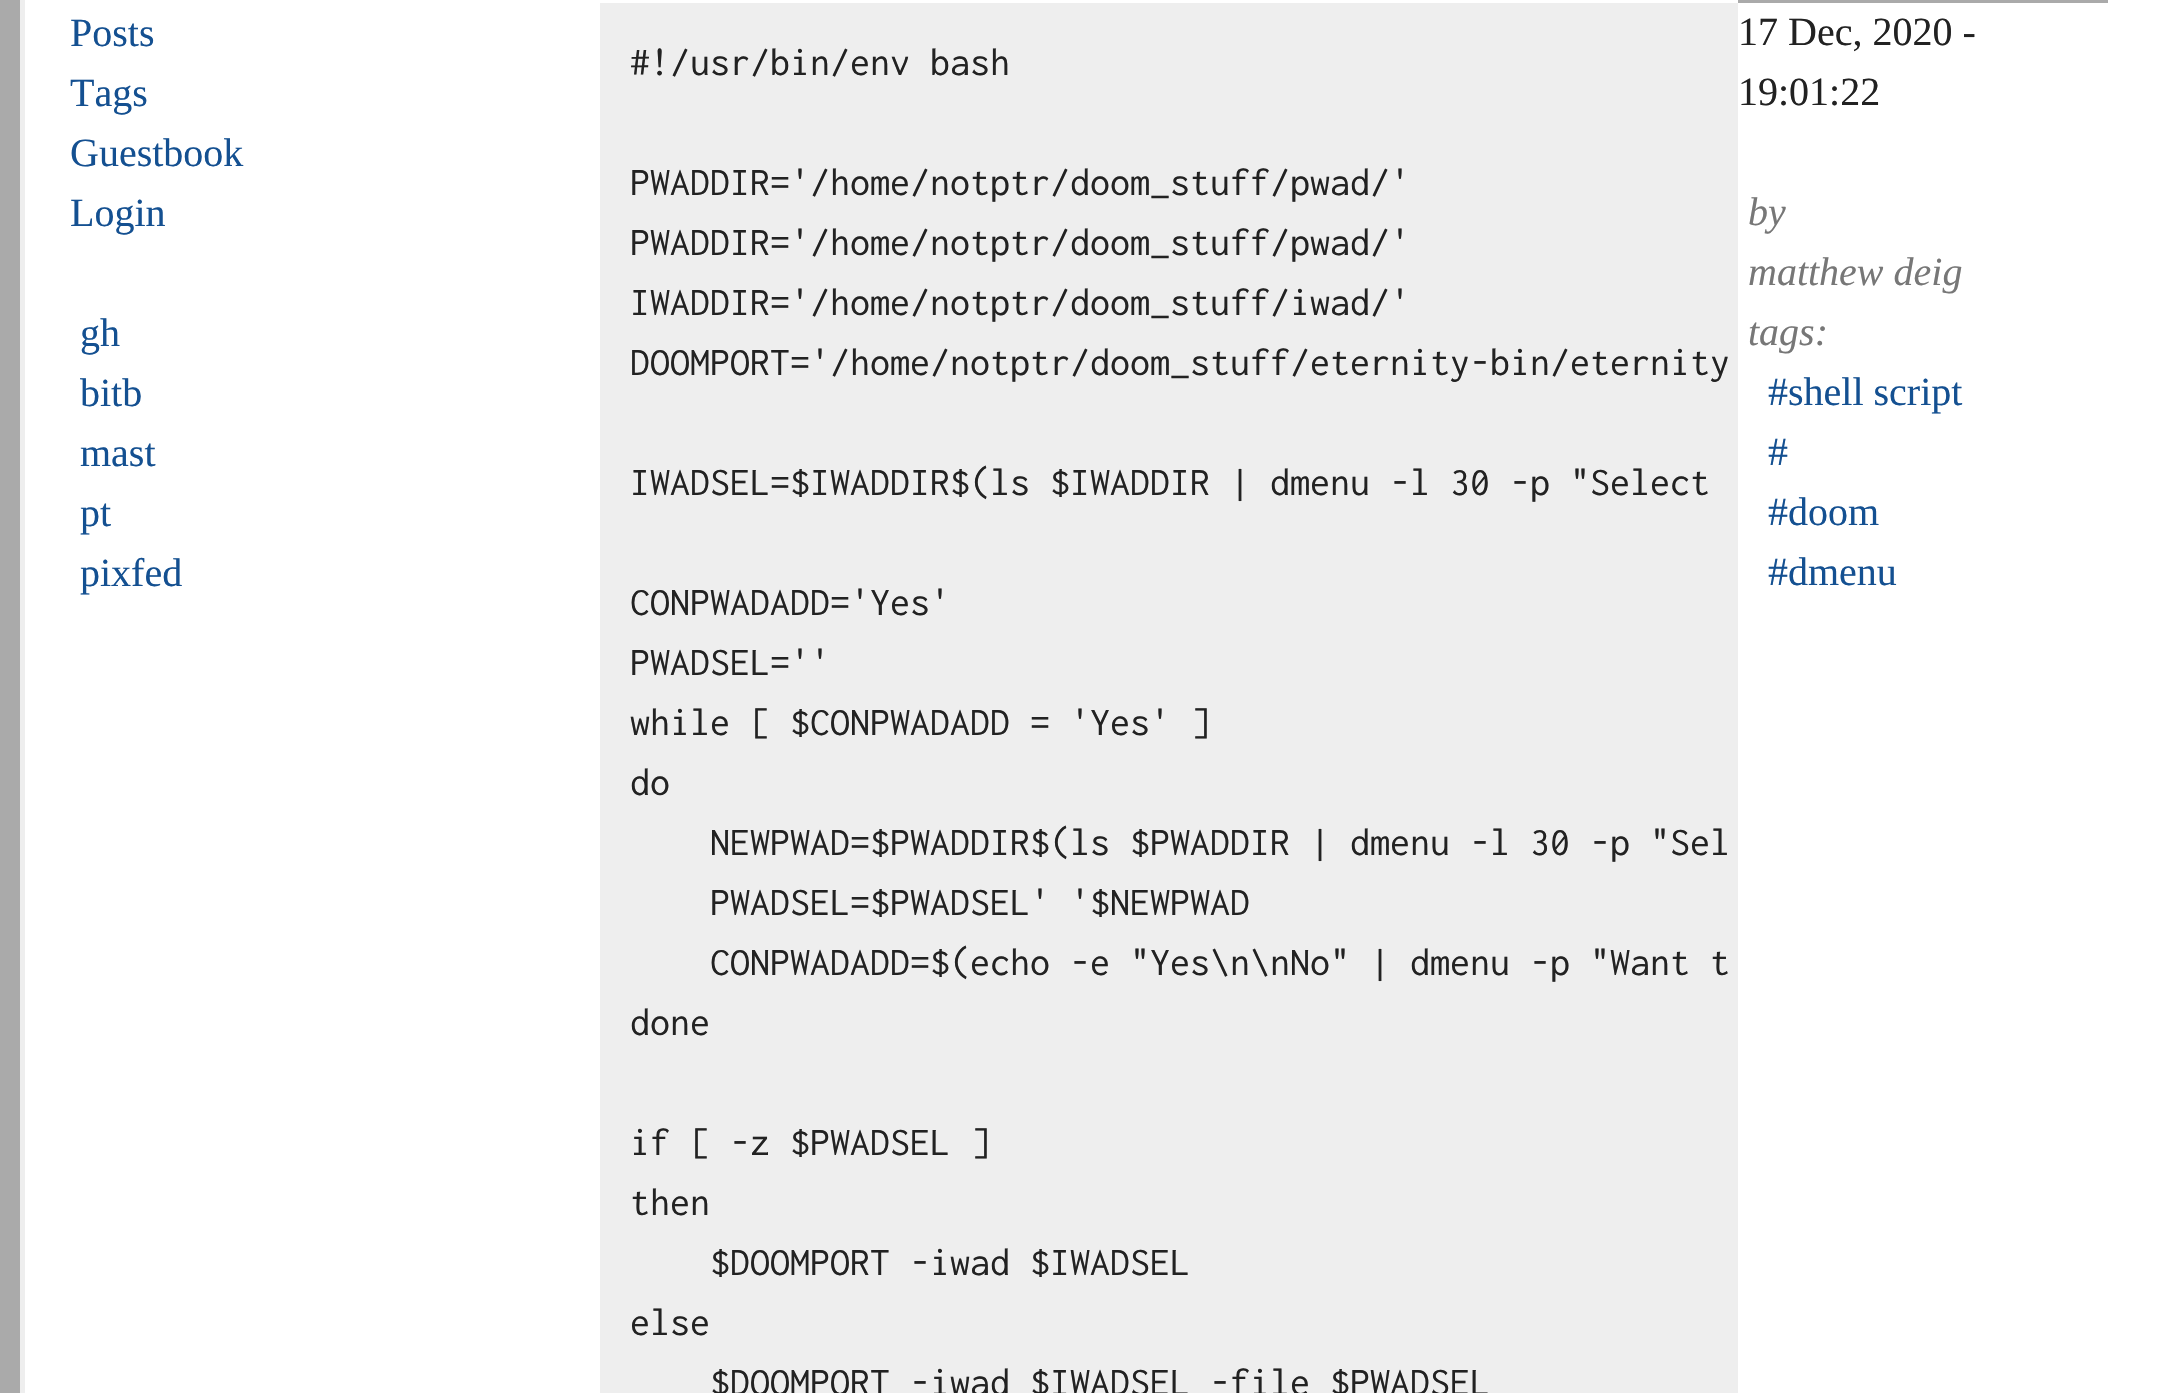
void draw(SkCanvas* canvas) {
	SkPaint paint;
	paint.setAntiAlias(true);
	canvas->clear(0xffffffff);
	paint.setColor(0xffaaaaaa);
	canvas->drawRect(SkRect::MakeXYWH(0, 0, 20, 1393), paint);
	paint.setColor(0xffeeeeee);
	canvas->drawRect(SkRect::MakeXYWH(20, 0, 5, 1393), paint);
	SkFont f1(fontMgr->matchFamilyStyle("Liberation Serif", SkFontStyle::Normal()), 40);
	f1.setSubpixel(true);
	paint.setColor(0xff145091);
	canvas->drawString("Posts", 70, 46, f1, paint);
	canvas->drawString("Tags", 70, 106, f1, paint);
	canvas->drawString("Guestbook", 70, 166, f1, paint);
	canvas->drawString("Login", 70, 226, f1, paint);
	canvas->drawString("gh", 80, 346, f1, paint);
	canvas->drawString("bitb", 80, 406, f1, paint);
	canvas->drawString("mast", 80, 466, f1, paint);
	canvas->drawString("pt", 80, 526, f1, paint);
	canvas->drawString("pixfed", 80, 586, f1, paint);
	paint.setColor(0xffeeeeee);
	canvas->drawRect(SkRect::MakeXYWH(600, 3, 1138, 1390), paint);
	SkFont f2(fontMgr->matchFamilyStyle("Inconsolata", SkFontStyle::Normal()), 40);
	f2.setSubpixel(true);
	paint.setColor(0xff222222);
	canvas->drawString("#!/usr/bin/env bash", 630, 75, f2, paint);
	canvas->drawString("PWADDIR='/home/notptr/doom_stuff/pwad/'", 630, 195, f2, paint);
	canvas->drawString("PWADDIR='/home/notptr/doom_stuff/pwad/'", 630, 255, f2, paint);
	canvas->drawString("IWADDIR='/home/notptr/doom_stuff/iwad/'", 630, 315, f2, paint);
	canvas->drawString("DOOMPORT='/home/notptr/doom_stuff/eternity-bin/eternity", 630, 375, f2, paint);
	canvas->drawString("IWADSEL=$IWADDIR$(ls $IWADDIR | dmenu -l 30 -p \"Select", 630, 495, f2, paint);
	canvas->drawString("CONPWADADD='Yes'", 630, 615, f2, paint);
	canvas->drawString("PWADSEL=''", 630, 675, f2, paint);
	canvas->drawString("while [ $CONPWADADD = 'Yes' ]", 630, 735, f2, paint);
	canvas->drawString("do", 630, 795, f2, paint);
	canvas->drawString("NEWPWAD=$PWADDIR$(ls $PWADDIR | dmenu -l 30 -p \"Sel", 710, 855, f2, paint);
	canvas->drawString("PWADSEL=$PWADSEL' '$NEWPWAD", 710, 915, f2, paint);
	canvas->drawString("CONPWADADD=$(echo -e \"Yes\\n\\nNo\" | dmenu -p \"Want t", 710, 975, f2, paint);
	canvas->drawString("done", 630, 1035, f2, paint);
	canvas->drawString("if [ -z $PWADSEL ]", 630, 1155, f2, paint);
	canvas->drawString("then", 630, 1215, f2, paint);
	canvas->drawString("$DOOMPORT -iwad $IWADSEL", 710, 1275, f2, paint);
	canvas->drawString("else", 630, 1335, f2, paint);
	canvas->drawString("$DOOMPORT -iwad $IWADSEL -file $PWADSEL", 710, 1395, f2, paint);
	paint.setColor(0xffaaaaaa);
	canvas->drawRect(SkRect::MakeXYWH(1738, 0, 370, 3), paint);
	paint.setColor(0xff222222);
	canvas->drawString("17 Dec, 2020 -", 1738, 45, f1, paint);
	canvas->drawString("19:01:22", 1738, 105, f1, paint);
	SkFont f3(fontMgr->matchFamilyStyle("Liberation Serif", SkFontStyle::Italic()), 40);
	f3.setSubpixel(true);
	paint.setColor(0xff777777);
	canvas->drawString("by", 1748, 225, f3, paint);
	canvas->drawString("matthew deig", 1748, 285, f3, paint);
	canvas->drawString("tags:", 1748, 345, f3, paint);
	paint.setColor(0xff145091);
	canvas->drawString("#shell script", 1768, 405, f1, paint);
	canvas->drawString("#", 1768, 465, f1, paint);
	canvas->drawString("#doom", 1768, 525, f1, paint);
	canvas->drawString("#dmenu", 1768, 585, f1, paint);
}
